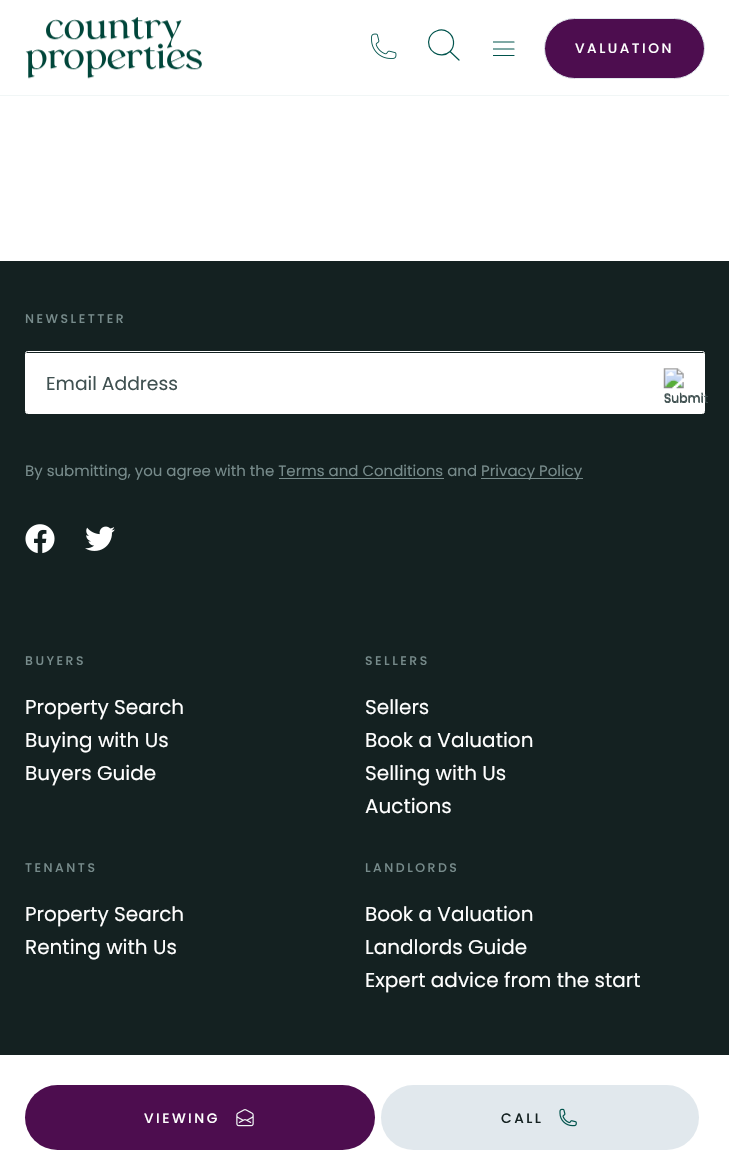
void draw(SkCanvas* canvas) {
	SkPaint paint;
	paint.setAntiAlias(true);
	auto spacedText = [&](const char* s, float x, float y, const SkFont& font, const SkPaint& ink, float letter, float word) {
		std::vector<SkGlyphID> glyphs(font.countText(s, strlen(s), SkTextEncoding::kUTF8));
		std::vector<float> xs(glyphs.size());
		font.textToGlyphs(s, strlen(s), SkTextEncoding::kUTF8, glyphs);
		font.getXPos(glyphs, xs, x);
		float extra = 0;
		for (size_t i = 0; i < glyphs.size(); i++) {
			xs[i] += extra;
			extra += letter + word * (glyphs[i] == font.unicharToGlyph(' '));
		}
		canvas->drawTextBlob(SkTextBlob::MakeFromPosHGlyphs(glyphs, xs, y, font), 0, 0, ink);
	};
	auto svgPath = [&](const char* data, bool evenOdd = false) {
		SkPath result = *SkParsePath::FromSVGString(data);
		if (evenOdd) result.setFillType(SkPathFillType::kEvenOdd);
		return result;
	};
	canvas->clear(0xffffffff);
	paint.setColor(0xfff1f6f6);
	canvas->drawRect(SkRect::MakeXYWH(0, 95, 729, 1), paint);
	canvas->drawImageRect(SkImages::DeferredFromEncodedData(SkData::MakeFromFileName("img1.png")), SkRect::MakeXYWH(25, 17, 177, 62), SkSamplingOptions());
	canvas->drawImageRect(SkImages::DeferredFromEncodedData(SkData::MakeFromFileName("img2.png")), SkRect::MakeXYWH(371, 33, 26, 26), SkSamplingOptions());
	paint.setStroke(true);
	paint.setStrokeWidth(1.2);
	paint.setStrokeCap(SkPaint::kRound_Cap);
	paint.setStrokeJoin(SkPaint::kRound_Join);
	paint.setColor(0xff00534c);
	canvas->drawPath(svgPath("M459 60L450 51.5M450 51.5C455.5 46 454.5 36.5 448 32C445 30 440 29.5 436.5 31C433.5 32 431 34.5 429.5 37.5C424.5 50.5 440.5 60.5 450 51.5Z"), paint);
	canvas->save();
	canvas->clipRect(SkRect::MakeXYWH(493, 41, 22, 15));
	canvas->drawPath(svgPath("M493.5 42H514M493.5 49H514M493.5 55.5H514"), paint);
	canvas->restore();
	paint.setStroke(false);
	paint.setColor(0xff4d0d4f);
	canvas->drawRoundRect(SkRect::MakeXYWH(544.5, 18.5, 160, 60), 30, 30, paint);
	paint.setStroke(true);
	paint.setStrokeWidth(1);
	paint.setStrokeCap(SkPaint::kButt_Cap);
	paint.setStrokeJoin(SkPaint::kMiter_Join);
	paint.setColor(0xffe1e8ed);
	canvas->drawRoundRect(SkRect::MakeXYWH(544.5, 18.5, 160, 60), 30, 30, paint);
	SkFont f1(fontMgr->matchFamilyStyle("Poppins", SkFontStyle(500, SkFontStyle::kNormal_Width, SkFontStyle::kUpright_Slant)), 13.75);
	f1.setSubpixel(true);
	paint.setStroke(false);
	paint.setColor(0xffffffff);
	spacedText("VALUATION", 575, 53, f1, paint, 2.5, 0);
	paint.setColor(0xff142121);
	canvas->drawRect(SkRect::MakeXYWH(0, 261, 729, 794), paint);
	SkFont f2(fontMgr->matchFamilyStyle("Poppins", SkFontStyle(500, SkFontStyle::kNormal_Width, SkFontStyle::kUpright_Slant)), 12.5);
	f2.setSubpixel(true);
	paint.setColor(0xff778b8b);
	spacedText("NEWSLETTER", 25, 323, f2, paint, 2.5, 0);
	paint.setStroke(true);
	paint.setColor(0xffffffff);
	canvas->drawRoundRect(SkRect::MakeXYWH(25.5, 351.5, 679, 62), 2, 2, paint);
	paint.setStroke(false);
	canvas->drawRect(SkRect::MakeXYWH(26, 353, 678, 60), paint);
	SkFont f3(fontMgr->matchFamilyStyle("Poppins", SkFontStyle::Normal()), 18.75);
	f3.setSubpixel(true);
	paint.setColor(0xff405151);
	canvas->drawString("Email Address", 46, 390, f3, paint);
	canvas->drawImageRect(SkImages::DeferredFromEncodedData(SkData::MakeFromFileName("img3.png")), SkRect::MakeXYWH(663, 368, 41, 34), SkSamplingOptions());
	SkFont f4(fontMgr->matchFamilyStyle("Poppins", SkFontStyle::Normal()), 12.5);
	f4.setSubpixel(true);
	canvas->drawString("Submit", 664, 403, f4, paint);
	SkFont f5(fontMgr->matchFamilyStyle("Poppins", SkFontStyle::Normal()), 15);
	f5.setSubpixel(true);
	paint.setColor(0xff778b8b);
	canvas->drawString("By submitting, you agree with the Terms and Conditions and", 25, 476, f5, paint);
	canvas->drawRect(SkRect::MakeXYWH(481, 478, 102, 1), paint);
	canvas->drawString("Privacy Policy", 481, 476, f5, paint);
	canvas->drawRect(SkRect::MakeXYWH(279, 478, 165, 1), paint);
	canvas->drawImageRect(SkImages::DeferredFromEncodedData(SkData::MakeFromFileName("img4.png")), SkRect::MakeXYWH(25, 524, 30, 30), SkSamplingOptions());
	canvas->drawImageRect(SkImages::DeferredFromEncodedData(SkData::MakeFromFileName("img5.png")), SkRect::MakeXYWH(85, 526, 30, 25), SkSamplingOptions());
	spacedText("BUYERS", 25, 665, f2, paint, 2.5, 0);
	SkFont f6(fontMgr->matchFamilyStyle("Poppins", SkFontStyle::Normal()), 20);
	f6.setSubpixel(true);
	paint.setColor(0xffffffff);
	canvas->drawString("Property Search", 25, 714, f6, paint);
	canvas->drawString("Buying with Us", 25, 747, f6, paint);
	canvas->drawString("Buyers Guide", 25, 780, f6, paint);
	paint.setColor(0xff778b8b);
	spacedText("SELLERS", 365, 665, f2, paint, 2.5, 0);
	paint.setColor(0xffffffff);
	canvas->drawString("Sellers", 365, 714, f6, paint);
	canvas->drawString("Book a Valuation", 365, 747, f6, paint);
	canvas->drawString("Selling with Us", 365, 780, f6, paint);
	canvas->drawString("Auctions", 365, 813, f6, paint);
	paint.setColor(0xff778b8b);
	spacedText("TENANTS", 25, 872, f2, paint, 2.5, 0);
	paint.setColor(0xffffffff);
	canvas->drawString("Property Search", 25, 921, f6, paint);
	canvas->drawString("Renting with Us", 25, 954, f6, paint);
	paint.setColor(0xff778b8b);
	spacedText("LANDLORDS", 365, 872, f2, paint, 2.5, 0);
	paint.setColor(0xffffffff);
	canvas->drawString("Book a Valuation", 365, 921, f6, paint);
	canvas->drawString("Landlords Guide", 365, 954, f6, paint);
	canvas->drawString("Expert advice from the start", 365, 987, f6, paint);
	paint.setColor(0xff4d0d4f);
	canvas->drawRoundRect(SkRect::MakeXYWH(25, 1085, 350, 65), 32.5, 32.5, paint);
	paint.setColor(0xffffffff);
	spacedText("VIEWING", 144, 1123, f1, paint, 2.5, 0);
	canvas->drawImageRect(SkImages::DeferredFromEncodedData(SkData::MakeFromFileName("img6.png")), SkRect::MakeXYWH(236, 1109, 18, 18), SkSamplingOptions());
	paint.setColor(0xffe1e8ed);
	canvas->drawRoundRect(SkRect::MakeXYWH(381, 1085, 318, 65), 32.5, 32.5, paint);
	paint.setColor(0xff142121);
	spacedText("CALL", 501, 1123, f1, paint, 2.5, 0);
	canvas->drawImageRect(SkImages::DeferredFromEncodedData(SkData::MakeFromFileName("img7.png")), SkRect::MakeXYWH(559, 1108, 18, 19), SkSamplingOptions());
}
